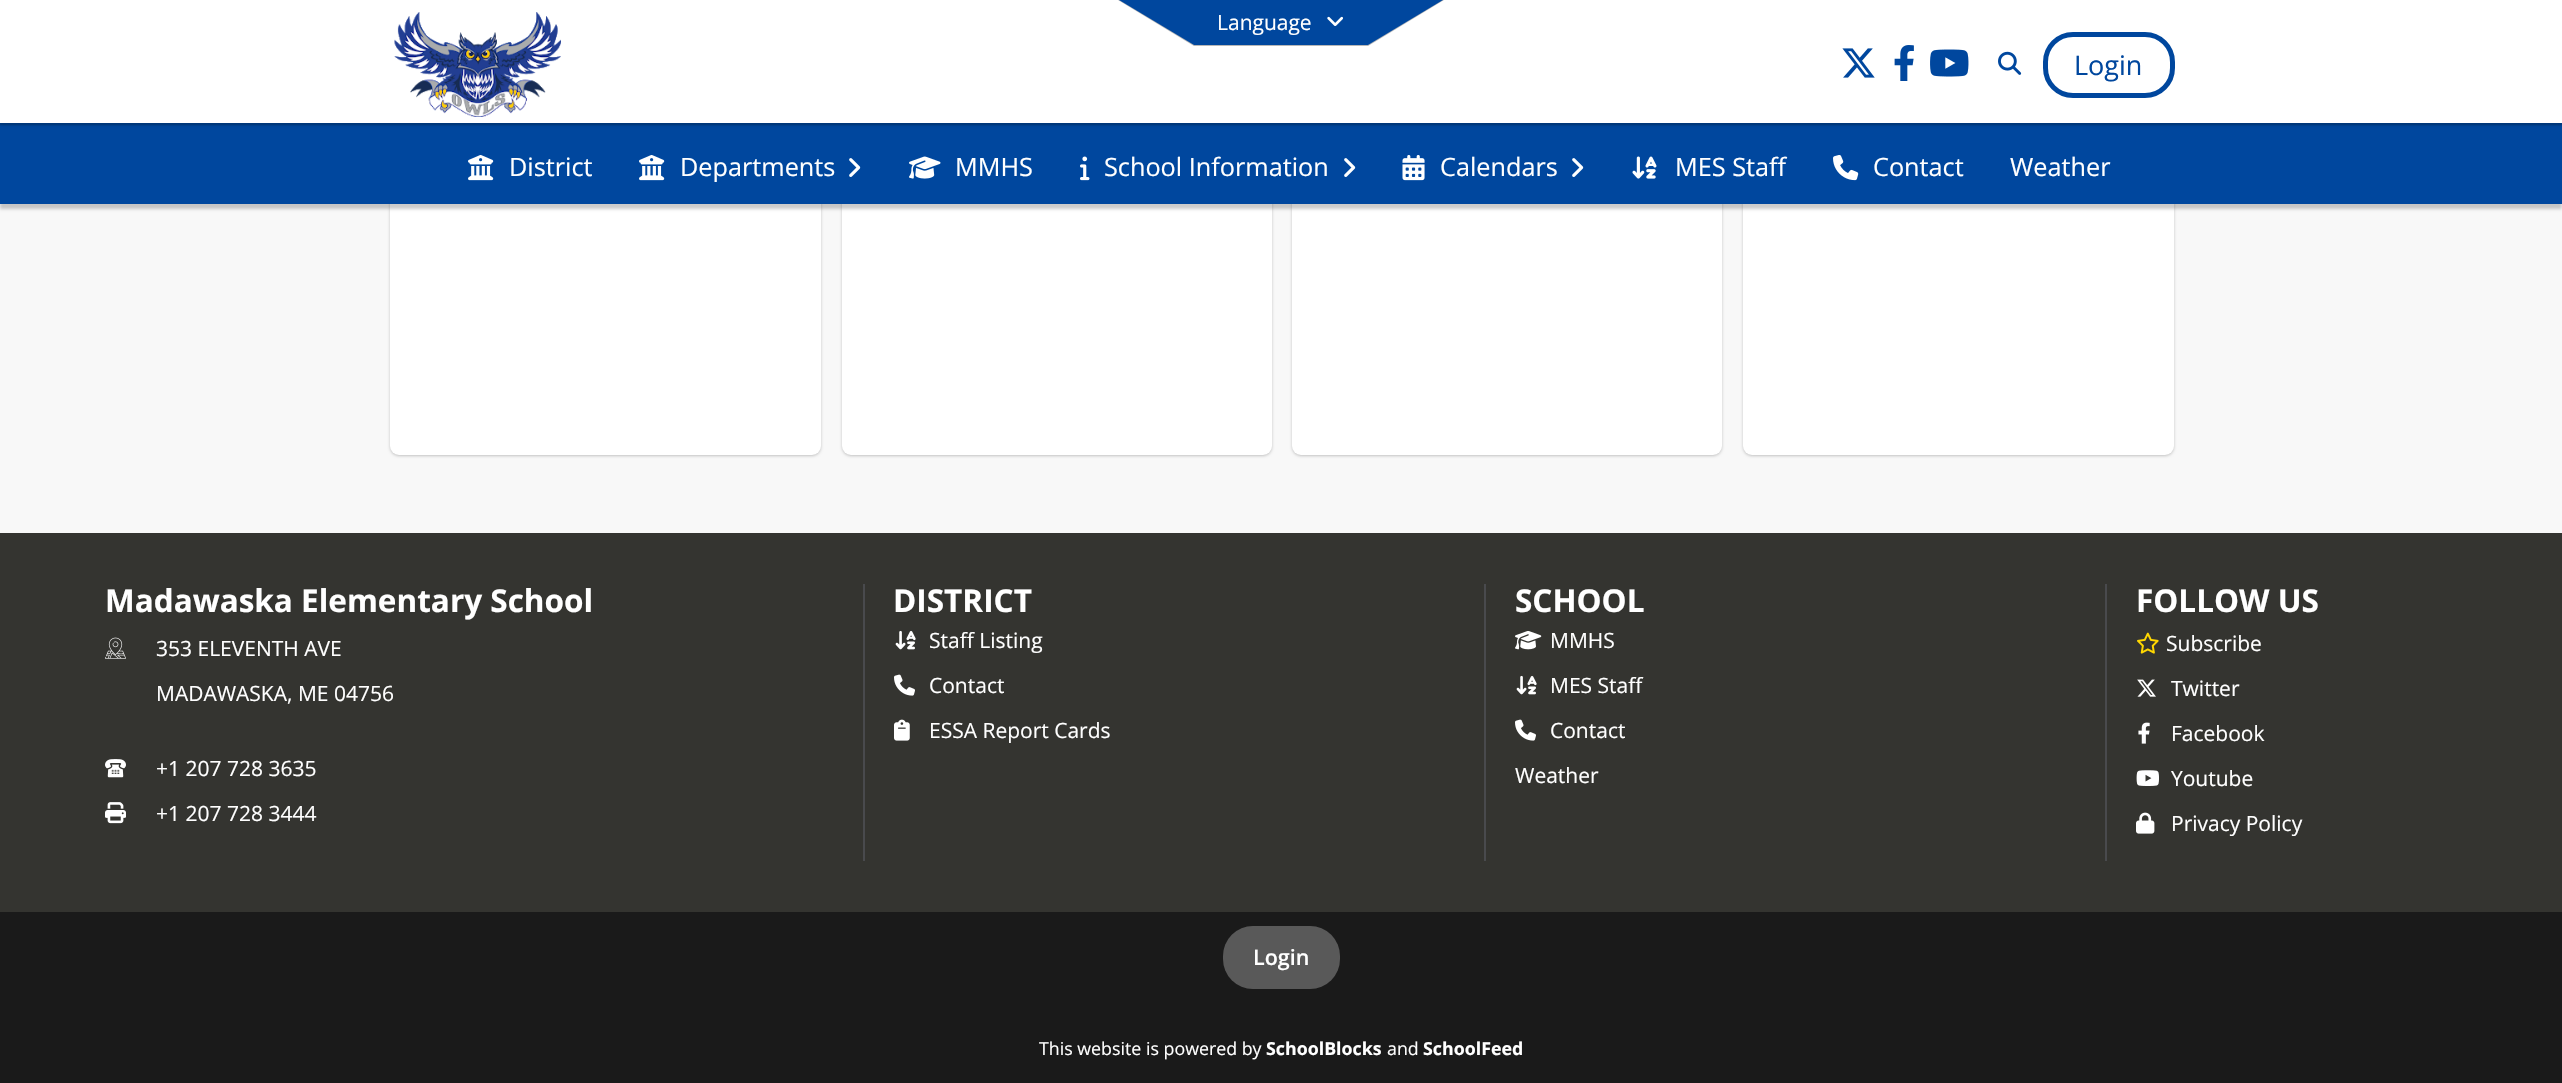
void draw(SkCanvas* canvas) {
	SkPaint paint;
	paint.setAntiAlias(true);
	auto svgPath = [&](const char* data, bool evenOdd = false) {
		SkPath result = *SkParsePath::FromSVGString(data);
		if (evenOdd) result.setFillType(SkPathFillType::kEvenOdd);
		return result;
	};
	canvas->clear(0xfff8f8f8);
	paint.setColor(0x38000000);
	paint.setMaskFilter(SkMaskFilter::MakeBlur(kNormal_SkBlurStyle, 1.5));
	canvas->drawRoundRect(SkRect::MakeXYWH(842, 21, 430, 435), 9, 9, paint);
	paint.setMaskFilter(nullptr);
	paint.setColor(0xffffffff);
	canvas->drawRoundRect(SkRect::MakeXYWH(842, 20, 430, 435), 9, 9, paint);
	paint.setColor(0x38000000);
	paint.setMaskFilter(SkMaskFilter::MakeBlur(kNormal_SkBlurStyle, 1.5));
	canvas->drawRoundRect(SkRect::MakeXYWH(1292, 21, 430, 435), 9, 9, paint);
	paint.setMaskFilter(nullptr);
	paint.setColor(0xffffffff);
	canvas->drawRoundRect(SkRect::MakeXYWH(1292, 20, 430, 435), 9, 9, paint);
	paint.setColor(0x38000000);
	paint.setMaskFilter(SkMaskFilter::MakeBlur(kNormal_SkBlurStyle, 1.5));
	canvas->drawRoundRect(SkRect::MakeXYWH(390, 21, 431, 435), 9, 9, paint);
	paint.setMaskFilter(nullptr);
	paint.setColor(0xffffffff);
	canvas->drawRoundRect(SkRect::MakeXYWH(390, 20, 431, 435), 9, 9, paint);
	paint.setColor(0x38000000);
	paint.setMaskFilter(SkMaskFilter::MakeBlur(kNormal_SkBlurStyle, 1.5));
	canvas->drawRoundRect(SkRect::MakeXYWH(1743, 21, 431, 435), 9, 9, paint);
	paint.setMaskFilter(nullptr);
	paint.setColor(0xffffffff);
	canvas->drawRoundRect(SkRect::MakeXYWH(1743, 20, 431, 435), 9, 9, paint);
	paint.setColor(0x33000000);
	paint.setMaskFilter(SkMaskFilter::MakeBlur(kNormal_SkBlurStyle, 1.5));
	canvas->drawRect(SkRect::MakeXYWH(0, 128, 2562, 81), paint);
	paint.setMaskFilter(nullptr);
	paint.setColor(0xff003d87);
	canvas->drawRect(SkRect::MakeXYWH(0, 123, 2562, 2), paint);
	paint.setColor(0xff00479e);
	canvas->drawRect(SkRect::MakeXYWH(0, 126, 2562, 78), paint);
	paint.setColor(0xff004496);
	canvas->drawRect(SkRect::MakeXYWH(0, 125, 2562, 1), paint);
	paint.setColor(0x1a000000);
	paint.setMaskFilter(SkMaskFilter::MakeBlur(kNormal_SkBlurStyle, 1.5));
	canvas->drawRect(SkRect::MakeXYWH(0, 3, 2562, 123), paint);
	paint.setMaskFilter(nullptr);
	paint.setColor(0xffffffff);
	canvas->drawRect(SkRect::MakeXYWH(0, 0, 2562, 123), paint);
	paint.setColor(0xffb7b7b7);
	canvas->drawPath(svgPath("M1118 0L1194 46H1368L1444 0Z"), paint);
	paint.setColor(0xff00479e);
	canvas->drawPath(svgPath("M1119 0L1194 45H1368L1443 0Z"), paint);
	SkFont f1(fontMgr->matchFamilyStyle("Open Sans", SkFontStyle::Normal()), 21);
	f1.setSubpixel(true);
	paint.setColor(0xffffffff);
	canvas->drawString("Language", 1217, 30, f1, paint);
	canvas->drawImageRect(SkImages::DeferredFromEncodedData(SkData::MakeFromFileName("img1.png")), SkRect::MakeXYWH(1327, 16, 16, 10), SkSamplingOptions());
	canvas->drawImageRect(SkImages::DeferredFromEncodedData(SkData::MakeFromFileName("img2.png")), SkRect::MakeXYWH(394, 12, 167, 105), SkSamplingOptions());
	canvas->drawImageRect(SkImages::DeferredFromEncodedData(SkData::MakeFromFileName("img3.png")), SkRect::MakeXYWH(1842, 48, 33, 30), SkSamplingOptions());
	canvas->drawImageRect(SkImages::DeferredFromEncodedData(SkData::MakeFromFileName("img4.png")), SkRect::MakeXYWH(1894, 45, 20, 36), SkSamplingOptions());
	canvas->drawImageRect(SkImages::DeferredFromEncodedData(SkData::MakeFromFileName("img5.png")), SkRect::MakeXYWH(1930, 49, 39, 28), SkSamplingOptions());
	canvas->drawImageRect(SkImages::DeferredFromEncodedData(SkData::MakeFromFileName("img6.png")), SkRect::MakeXYWH(1998, 51, 24, 24), SkSamplingOptions());
	paint.setStroke(true);
	paint.setStrokeWidth(5);
	paint.setColor(0xff00479e);
	canvas->drawRoundRect(SkRect::MakeXYWH(2045.5, 34.5, 127, 61), 27.5, 27.5, paint);
	SkFont f2(fontMgr->matchFamilyStyle("Open Sans", SkFontStyle::Normal()), 27);
	f2.setSubpixel(true);
	paint.setStroke(false);
	canvas->drawString("Login", 2074, 75, f2, paint);
	canvas->drawImageRect(SkImages::DeferredFromEncodedData(SkData::MakeFromFileName("img7.png")), SkRect::MakeXYWH(468, 155, 26, 26), SkSamplingOptions());
	SkFont f3(fontMgr->matchFamilyStyle("Open Sans", SkFontStyle::Normal()), 25.25);
	f3.setSubpixel(true);
	paint.setColor(0xffffffff);
	canvas->drawString("District", 509, 176, f3, paint);
	canvas->drawImageRect(SkImages::DeferredFromEncodedData(SkData::MakeFromFileName("img7.png")), SkRect::MakeXYWH(639, 155, 26, 26), SkSamplingOptions());
	canvas->drawString("Departments", 680, 176, f3, paint);
	canvas->drawImageRect(SkImages::DeferredFromEncodedData(SkData::MakeFromFileName("img8.png")), SkRect::MakeXYWH(849, 158, 12, 19), SkSamplingOptions());
	canvas->drawImageRect(SkImages::DeferredFromEncodedData(SkData::MakeFromFileName("img9.png")), SkRect::MakeXYWH(909, 156, 32, 23), SkSamplingOptions());
	canvas->drawString("MMHS", 955, 176, f3, paint);
	canvas->drawImageRect(SkImages::DeferredFromEncodedData(SkData::MakeFromFileName("img10.png")), SkRect::MakeXYWH(1080, 156, 10, 25), SkSamplingOptions());
	canvas->drawString("School Information", 1104, 176, f3, paint);
	canvas->drawImageRect(SkImages::DeferredFromEncodedData(SkData::MakeFromFileName("img8.png")), SkRect::MakeXYWH(1344, 158, 12, 19), SkSamplingOptions());
	canvas->drawImageRect(SkImages::DeferredFromEncodedData(SkData::MakeFromFileName("img11.png")), SkRect::MakeXYWH(1402, 155, 23, 26), SkSamplingOptions());
	canvas->drawString("Calendars", 1440, 176, f3, paint);
	canvas->drawImageRect(SkImages::DeferredFromEncodedData(SkData::MakeFromFileName("img8.png")), SkRect::MakeXYWH(1572, 158, 12, 19), SkSamplingOptions());
	canvas->drawImageRect(SkImages::DeferredFromEncodedData(SkData::MakeFromFileName("img12.png")), SkRect::MakeXYWH(1632, 156, 25, 23), SkSamplingOptions());
	canvas->drawString("MES Staff", 1675, 176, f3, paint);
	canvas->drawImageRect(SkImages::DeferredFromEncodedData(SkData::MakeFromFileName("img13.png")), SkRect::MakeXYWH(1833, 155, 26, 26), SkSamplingOptions());
	canvas->drawString("Contact", 1873, 176, f3, paint);
	canvas->drawString("Weather", 2010, 176, f3, paint);
	paint.setColor(0xff343430);
	canvas->drawRect(SkRect::MakeXYWH(0, 533, 2562, 379), paint);
	SkFont f4(fontMgr->matchFamilyStyle("Open Sans", SkFontStyle::Bold()), 31.5);
	f4.setSubpixel(true);
	paint.setColor(0xffffffff);
	canvas->drawString("Madawaska Elementary School", 105, 612, f4, paint);
	canvas->drawImageRect(SkImages::DeferredFromEncodedData(SkData::MakeFromFileName("img14.png")), SkRect::MakeXYWH(105, 637, 21, 22), SkSamplingOptions());
	canvas->drawString("353 ELEVENTH AVE", 156, 656, f1, paint);
	canvas->drawString("MADAWASKA, ME 04756", 156, 701, f1, paint);
	canvas->drawImageRect(SkImages::DeferredFromEncodedData(SkData::MakeFromFileName("img15.png")), SkRect::MakeXYWH(105, 759, 21, 19), SkSamplingOptions());
	canvas->drawString("+1 207 728 3635", 156, 776, f1, paint);
	canvas->drawImageRect(SkImages::DeferredFromEncodedData(SkData::MakeFromFileName("img16.png")), SkRect::MakeXYWH(105, 802, 21, 22), SkSamplingOptions());
	canvas->drawString("+1 207 728 3444", 156, 821, f1, paint);
	paint.setColor(0xff494a4d);
	canvas->drawRect(SkRect::MakeXYWH(863, 584, 2, 277), paint);
	paint.setColor(0xffffffff);
	canvas->drawString("DISTRICT", 893, 612, f4, paint);
	canvas->drawImageRect(SkImages::DeferredFromEncodedData(SkData::MakeFromFileName("img17.png")), SkRect::MakeXYWH(895, 630, 21, 20), SkSamplingOptions());
	canvas->drawString("Staff Listing", 929, 648, f1, paint);
	canvas->drawImageRect(SkImages::DeferredFromEncodedData(SkData::MakeFromFileName("img18.png")), SkRect::MakeXYWH(894, 674, 21, 22), SkSamplingOptions());
	canvas->drawString("Contact", 929, 693, f1, paint);
	canvas->drawImageRect(SkImages::DeferredFromEncodedData(SkData::MakeFromFileName("img19.png")), SkRect::MakeXYWH(894, 719, 16, 22), SkSamplingOptions());
	canvas->drawString("ESSA Report Cards", 929, 738, f1, paint);
	paint.setColor(0xff494a4d);
	canvas->drawRect(SkRect::MakeXYWH(1484, 584, 2, 277), paint);
	paint.setColor(0xffffffff);
	canvas->drawString("SCHOOL", 1515, 612, f4, paint);
	canvas->drawImageRect(SkImages::DeferredFromEncodedData(SkData::MakeFromFileName("img20.png")), SkRect::MakeXYWH(1515, 631, 27, 19), SkSamplingOptions());
	canvas->drawString("MMHS", 1550, 648, f1, paint);
	canvas->drawImageRect(SkImages::DeferredFromEncodedData(SkData::MakeFromFileName("img17.png")), SkRect::MakeXYWH(1516, 675, 21, 20), SkSamplingOptions());
	canvas->drawString("MES Staff", 1550, 693, f1, paint);
	canvas->drawImageRect(SkImages::DeferredFromEncodedData(SkData::MakeFromFileName("img18.png")), SkRect::MakeXYWH(1515, 719, 21, 22), SkSamplingOptions());
	canvas->drawString("Contact", 1550, 738, f1, paint);
	canvas->drawString("Weather", 1515, 783, f1, paint);
	paint.setColor(0xff494a4d);
	canvas->drawRect(SkRect::MakeXYWH(2105, 584, 2, 277), paint);
	paint.setColor(0xffffffff);
	canvas->drawString("FOLLOW US", 2136, 612, f4, paint);
	canvas->drawImageRect(SkImages::DeferredFromEncodedData(SkData::MakeFromFileName("img21.png")), SkRect::MakeXYWH(2137, 632, 22, 22), SkSamplingOptions());
	canvas->drawString("Subscribe", 2166, 651, f1, paint);
	canvas->drawImageRect(SkImages::DeferredFromEncodedData(SkData::MakeFromFileName("img22.png")), SkRect::MakeXYWH(2137, 679, 19, 18), SkSamplingOptions());
	canvas->drawString("Twitter", 2171, 696, f1, paint);
	canvas->drawImageRect(SkImages::DeferredFromEncodedData(SkData::MakeFromFileName("img23.png")), SkRect::MakeXYWH(2138, 722, 12, 22), SkSamplingOptions());
	canvas->drawString("Facebook", 2171, 741, f1, paint);
	canvas->drawImageRect(SkImages::DeferredFromEncodedData(SkData::MakeFromFileName("img24.png")), SkRect::MakeXYWH(2136, 770, 23, 16), SkSamplingOptions());
	canvas->drawString("Youtube", 2171, 786, f1, paint);
	canvas->drawImageRect(SkImages::DeferredFromEncodedData(SkData::MakeFromFileName("img25.png")), SkRect::MakeXYWH(2136, 812, 19, 22), SkSamplingOptions());
	canvas->drawString("Privacy Policy", 2171, 831, f1, paint);
	paint.setColor(0xff1a1a1a);
	canvas->drawRect(SkRect::MakeXYWH(0, 912, 2562, 171), paint);
	paint.setColor(0xff595959);
	canvas->drawRoundRect(SkRect::MakeXYWH(1223, 926, 117, 63), 30, 30, paint);
	SkFont f5(fontMgr->matchFamilyStyle("Open Sans", SkFontStyle(600, SkFontStyle::kNormal_Width, SkFontStyle::kUpright_Slant)), 21.5);
	f5.setSubpixel(true);
	paint.setColor(0xffffffff);
	canvas->drawString("Login", 1253, 965, f5, paint);
	SkFont f6(fontMgr->matchFamilyStyle("Open Sans", SkFontStyle::Normal()), 17.8);
	f6.setSubpixel(true);
	canvas->drawString("This website is powered by", 1039, 1055, f6, paint);
	SkFont f7(fontMgr->matchFamilyStyle("Open Sans", SkFontStyle::Bold()), 17.8);
	f7.setSubpixel(true);
	canvas->drawString("SchoolBlocks", 1266, 1055, f7, paint);
	canvas->drawString("and", 1387, 1055, f6, paint);
	canvas->drawString("SchoolFeed", 1423, 1055, f7, paint);
}
